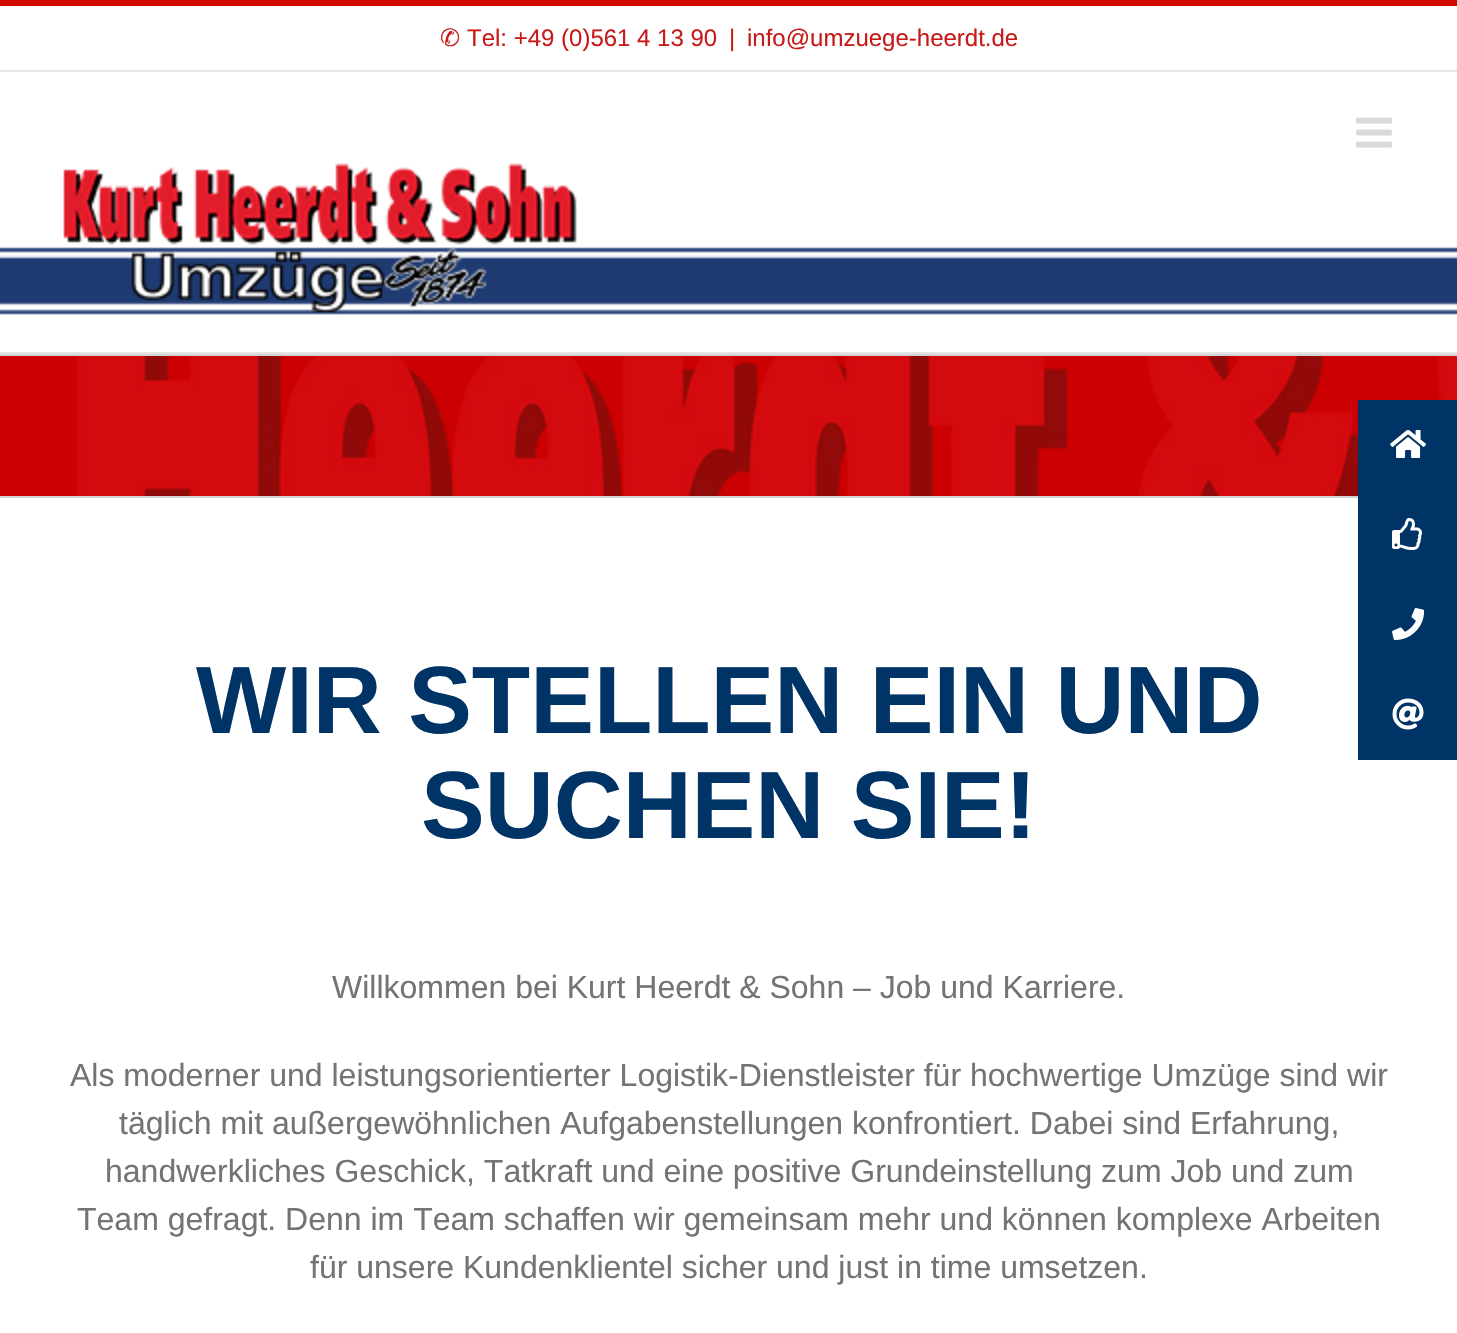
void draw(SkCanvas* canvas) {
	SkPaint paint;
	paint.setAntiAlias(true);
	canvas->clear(0xffffffff);
	paint.setColor(0xffd10a00);
	canvas->drawRect(SkRect::MakeXYWH(0, 0, 1457, 6), paint);
	paint.setColor(0xffe5e5e5);
	canvas->drawRect(SkRect::MakeXYWH(0, 70, 1457, 2), paint);
	SkFont f1(fontMgr->matchFamilyStyle("DejaVu Sans", SkFontStyle::Normal()), 24);
	f1.setSubpixel(true);
	paint.setColor(0xffc81a18);
	canvas->drawString("✆", 440, 46, f1, paint);
	SkFont f2(fontMgr->matchFamilyStyle("Liberation Sans", SkFontStyle::Normal()), 24);
	f2.setSubpixel(true);
	canvas->drawString("Tel: +49 (0)561 4 13 90", 467, 46, f2, paint);
	canvas->drawString("|", 729, 46, f2, paint);
	canvas->drawString("info@umzuege-heerdt.de", 747, 46, f2, paint);
	canvas->drawImageRect(SkImages::DeferredFromEncodedData(SkData::MakeFromFileName("img1.png")), SkRect::MakeXYWH(0, 247, 1457, 68), SkSamplingOptions());
	paint.setColor(0xffe5e5e5);
	canvas->drawRect(SkRect::MakeXYWH(0, 352, 1457, 2), paint);
	canvas->drawImageRect(SkImages::DeferredFromEncodedData(SkData::MakeFromFileName("img2.png")), SkRect::MakeXYWH(1356, 117, 36, 31), SkSamplingOptions());
	canvas->drawImageRect(SkImages::DeferredFromEncodedData(SkData::MakeFromFileName("img3.png")), SkRect::MakeXYWH(63, 163, 514, 150), SkSamplingOptions());
	canvas->drawImageRect(SkImages::DeferredFromEncodedData(SkData::MakeFromFileName("img4.png")), SkRect::MakeXYWH(0, 356, 1457, 140), SkSamplingOptions());
	paint.setColor(0xffd2d3d4);
	canvas->drawRect(SkRect::MakeXYWH(0, 354, 1457, 2), paint);
	canvas->drawRect(SkRect::MakeXYWH(0, 496, 1358, 2), paint);
	SkFont f3(fontMgr->matchFamilyStyle("Liberation Sans", SkFontStyle::Bold()), 95.5);
	f3.setSubpixel(true);
	paint.setColor(0xff003366);
	canvas->drawString("WIR STELLEN EIN UND", 196, 733, f3, paint);
	canvas->drawString("SUCHEN SIE!", 421, 838, f3, paint);
	SkFont f4(fontMgr->matchFamilyStyle("Liberation Sans", SkFontStyle::Normal()), 32);
	f4.setSubpixel(true);
	paint.setColor(0xff747474);
	canvas->drawString("Willkommen bei Kurt Heerdt & Sohn – Job und Karriere.", 332, 998, f4, paint);
	canvas->drawString("Als moderner und leistungsorientierter Logistik-Dienstleister für hochwertige Umzüge sind wir", 70, 1086, f4, paint);
	canvas->drawString("täglich mit außergewöhnlichen Aufgabenstellungen konfrontiert. Dabei sind Erfahrung,", 119, 1134, f4, paint);
	canvas->drawString("handwerkliches Geschick, Tatkraft und eine positive Grundeinstellung zum Job und zum", 105, 1182, f4, paint);
	canvas->drawString("Team gefragt. Denn im Team schaffen wir gemeinsam mehr und können komplexe Arbeiten", 77, 1230, f4, paint);
	canvas->drawString("für unsere Kundenklientel sicher und just in time umsetzen.", 310, 1278, f4, paint);
	paint.setColor(0xff003366);
	canvas->drawRect(SkRect::MakeXYWH(1358, 400, 99, 360), paint);
	canvas->drawImageRect(SkImages::DeferredFromEncodedData(SkData::MakeFromFileName("img5.png")), SkRect::MakeXYWH(1390, 430, 36, 28), SkSamplingOptions());
	canvas->drawImageRect(SkImages::DeferredFromEncodedData(SkData::MakeFromFileName("img6.png")), SkRect::MakeXYWH(1392, 518, 30, 32), SkSamplingOptions());
	canvas->drawImageRect(SkImages::DeferredFromEncodedData(SkData::MakeFromFileName("img7.png")), SkRect::MakeXYWH(1392, 608, 33, 32), SkSamplingOptions());
	canvas->drawImageRect(SkImages::DeferredFromEncodedData(SkData::MakeFromFileName("img8.png")), SkRect::MakeXYWH(1392, 698, 32, 32), SkSamplingOptions());
}
